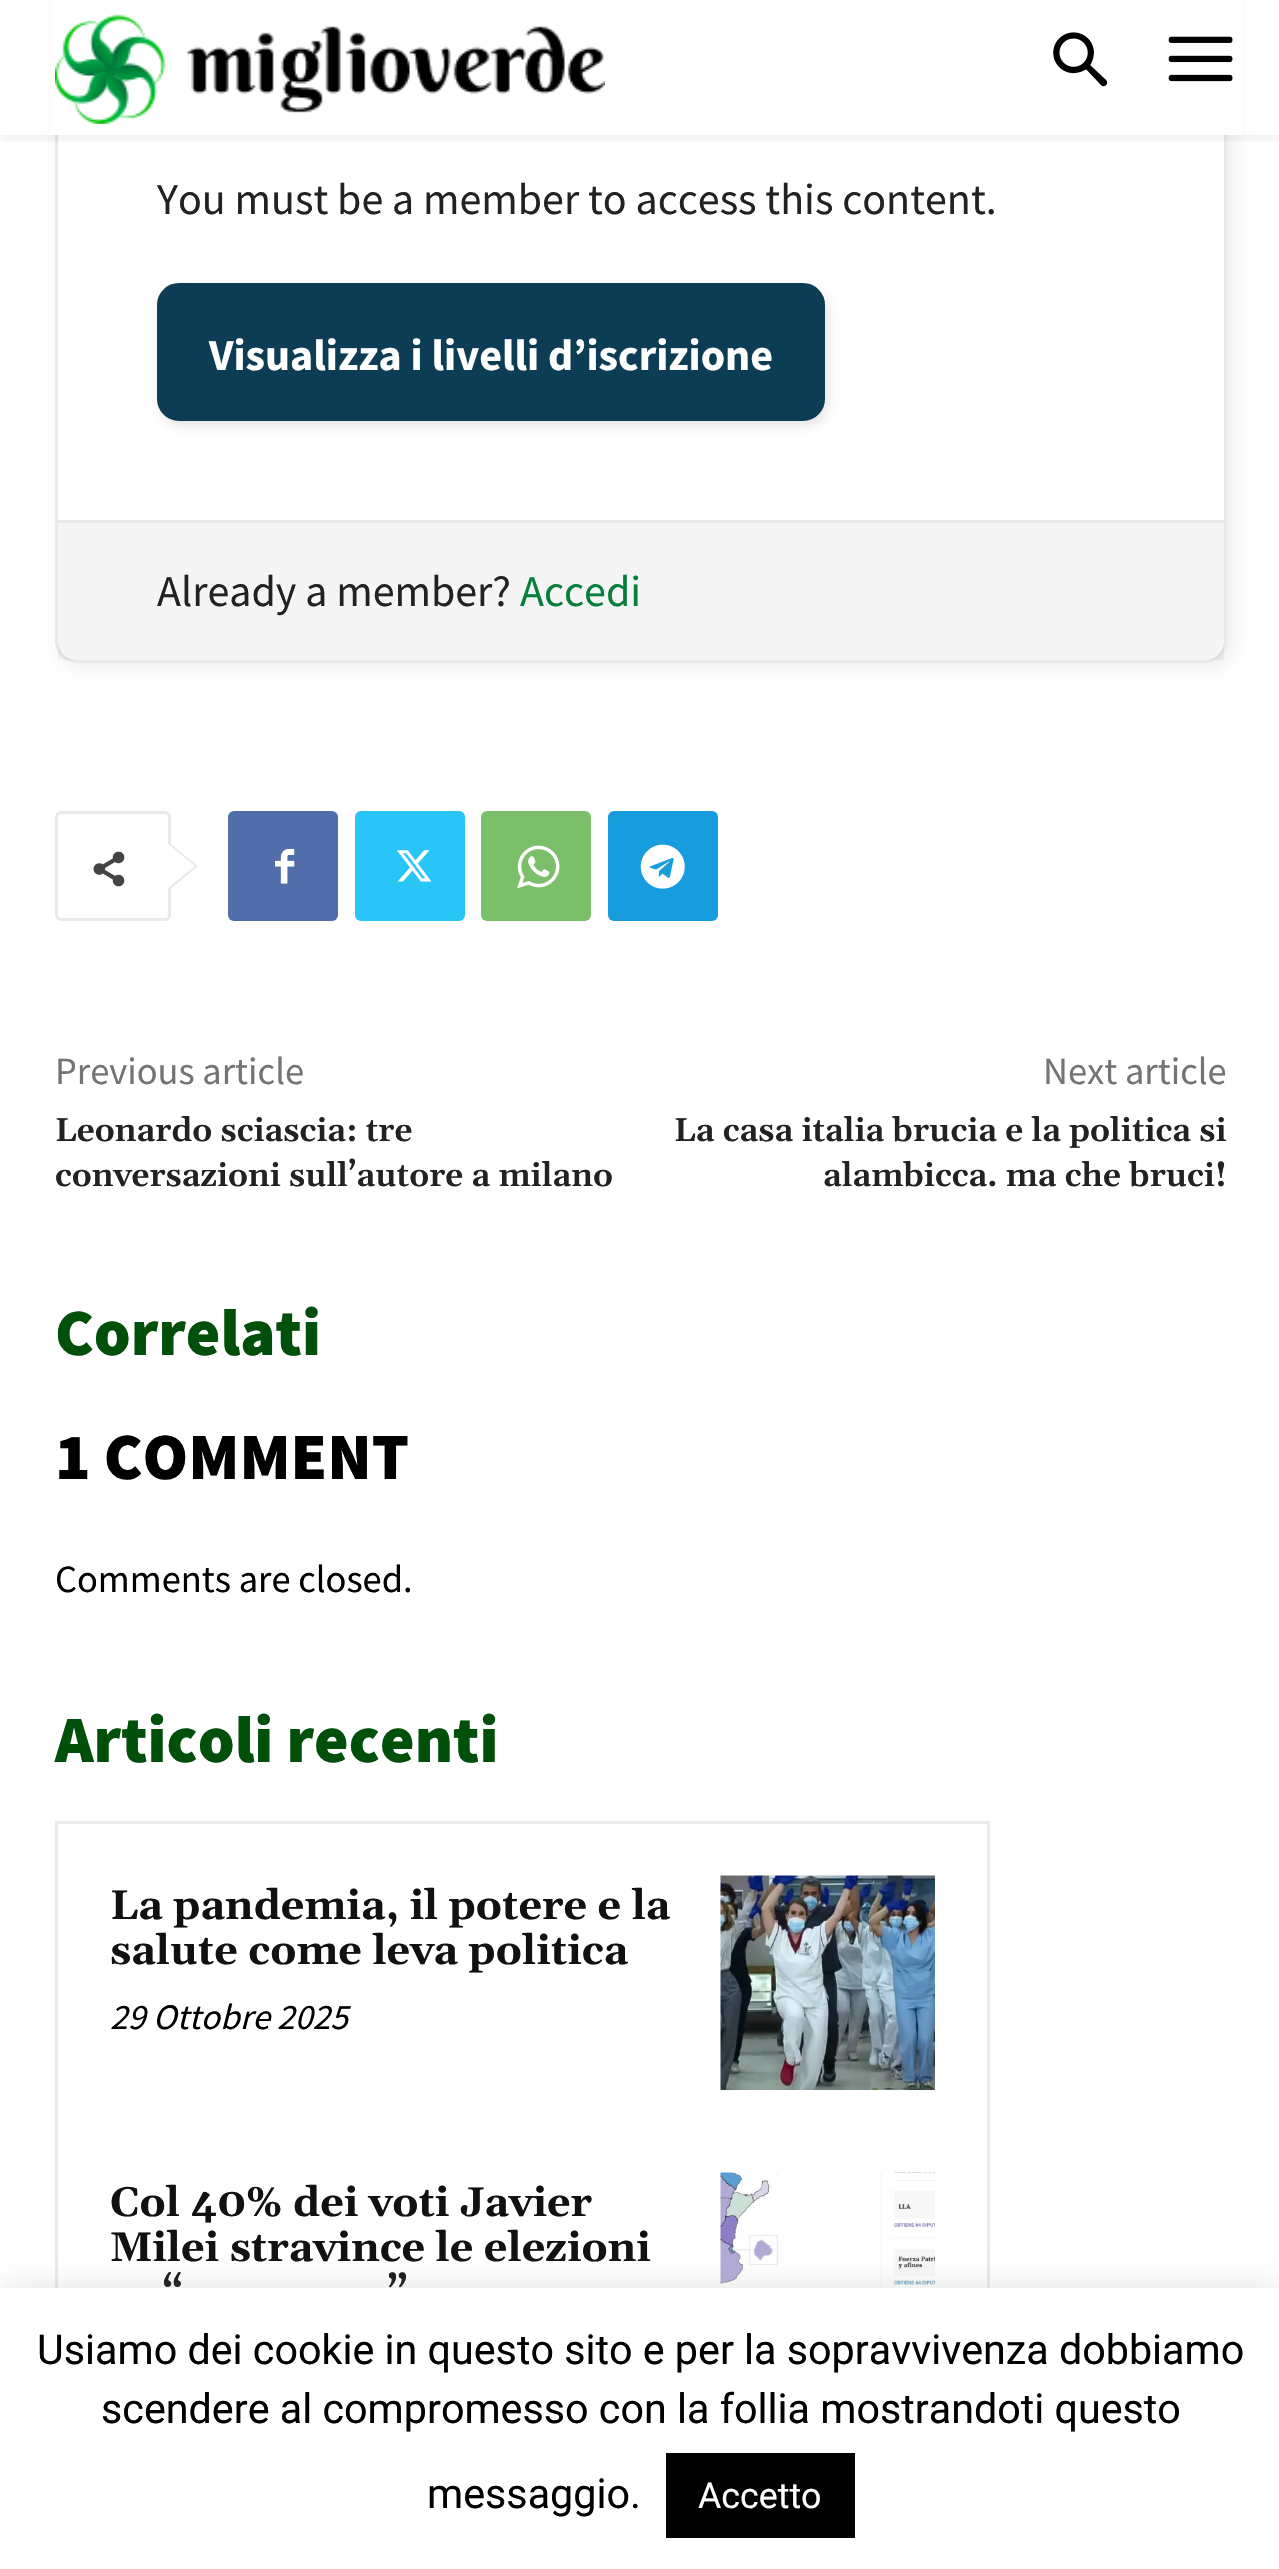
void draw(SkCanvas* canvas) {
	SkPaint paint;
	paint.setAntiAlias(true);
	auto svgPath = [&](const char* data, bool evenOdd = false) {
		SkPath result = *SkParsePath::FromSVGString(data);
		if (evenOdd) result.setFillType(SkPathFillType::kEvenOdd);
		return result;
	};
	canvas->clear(0xffffffff);
	paint.setColor(0x12000000);
	paint.setMaskFilter(SkMaskFilter::MakeBlur(kNormal_SkBlurStyle, 9.5));
	canvas->drawRoundRect(SkRect::MakeXYWH(61, -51, 1171, 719), 22, 22, paint);
	paint.setMaskFilter(nullptr);
	paint.setColor(0xffffffff);
	canvas->drawRoundRect(SkRect::MakeXYWH(56.5, -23.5, 1169, 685), 20.5, 20.5, paint);
	paint.setStroke(true);
	paint.setStrokeWidth(3);
	paint.setColor(0xffe8e8e8);
	canvas->drawRoundRect(SkRect::MakeXYWH(56.5, -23.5, 1169, 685), 20.5, 20.5, paint);
	paint.setStroke(false);
	paint.setColor(0xffffffff);
	canvas->drawRect(SkRect::MakeXYWH(51, 0, 1191, 135), paint);
	canvas->drawImageRect(SkImages::DeferredFromEncodedData(SkData::MakeFromFileName("img1.png")), SkRect::MakeXYWH(55, 14, 550, 110), SkSamplingOptions());
	canvas->drawImageRect(SkImages::DeferredFromEncodedData(SkData::MakeFromFileName("img2.png")), SkRect::MakeXYWH(1053, 32, 55, 55), SkSamplingOptions());
	canvas->drawImageRect(SkImages::DeferredFromEncodedData(SkData::MakeFromFileName("img3.png")), SkRect::MakeXYWH(1168, 36, 65, 46), SkSamplingOptions());
	canvas->save();
	canvas->clipRect(SkRect::MakeXYWH(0, 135, 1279, 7));
	paint.setColor(0x0f000000);
	paint.setMaskFilter(SkMaskFilter::MakeBlur(kNormal_SkBlurStyle, 5.5));
	canvas->drawRect(SkRect::MakeXYWH(0, 6, 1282, 134), paint);
	paint.setMaskFilter(nullptr);
	canvas->restore();
	SkFont f1(fontMgr->matchFamilyStyle("Source Sans Pro", SkFontStyle::Normal()), 44);
	f1.setSubpixel(true);
	paint.setColor(0xff222222);
	canvas->drawString("You must be a member to access this content.", 157, 214, f1, paint);
	paint.setColor(0x1a000000);
	paint.setMaskFilter(SkMaskFilter::MakeBlur(kNormal_SkBlurStyle, 5.5));
	canvas->drawRoundRect(SkRect::MakeXYWH(160, 289, 668, 137), 22, 22, paint);
	paint.setMaskFilter(nullptr);
	paint.setColor(0xff0c3d54);
	canvas->drawRoundRect(SkRect::MakeXYWH(158.5, 284.5, 665, 135), 20.5, 20.5, paint);
	paint.setStroke(true);
	canvas->drawRoundRect(SkRect::MakeXYWH(158.5, 284.5, 665, 135), 20.5, 20.5, paint);
	SkFont f2(fontMgr->matchFamilyStyle("Source Sans Pro", SkFontStyle::Bold()), 44);
	f2.setSubpixel(true);
	paint.setStroke(false);
	paint.setColor(0xffffffff);
	canvas->drawString("Visualizza i livelli d’iscrizione", 209, 370, f2, paint);
	paint.setColor(0x0a000000);
	canvas->drawRect(SkRect::MakeXYWH(58, 523, 1166, 137), paint);
	paint.setColor(0xffe8e8e8);
	canvas->drawRect(SkRect::MakeXYWH(58, 520, 1166, 3), paint);
	paint.setColor(0xff222222);
	canvas->drawString("Already a member?", 157, 606, f1, paint);
	paint.setColor(0xff087e3b);
	canvas->drawString("Accedi", 520, 606, f1, paint);
	paint.setStroke(true);
	paint.setColor(0xffe9e9e9);
	canvas->drawRoundRect(SkRect::MakeXYWH(56.5, 812.5, 113, 107), 4.5, 4.5, paint);
	paint.setStroke(false);
	canvas->drawPath(svgPath("M168 891V842L198 866Z"), paint);
	canvas->drawImageRect(SkImages::DeferredFromEncodedData(SkData::MakeFromFileName("img4.png")), SkRect::MakeXYWH(93, 851, 32, 36), SkSamplingOptions());
	paint.setColor(0xffffffff);
	canvas->drawPath(svgPath("M168 888V844L195 866Z"), paint);
	paint.setColor(0xff516eab);
	canvas->drawRoundRect(SkRect::MakeXYWH(228, 811, 110, 110), 6, 6, paint);
	canvas->drawImageRect(SkImages::DeferredFromEncodedData(SkData::MakeFromFileName("img5.png")), SkRect::MakeXYWH(275, 848, 20, 36), SkSamplingOptions());
	paint.setColor(0xff29c5f6);
	canvas->drawRoundRect(SkRect::MakeXYWH(355, 811, 110, 110), 6, 6, paint);
	canvas->drawImageRect(SkImages::DeferredFromEncodedData(SkData::MakeFromFileName("img6.png")), SkRect::MakeXYWH(397, 850, 35, 32), SkSamplingOptions());
	paint.setColor(0xff7bbf6a);
	canvas->drawRoundRect(SkRect::MakeXYWH(481, 811, 110, 110), 6, 6, paint);
	canvas->drawImageRect(SkImages::DeferredFromEncodedData(SkData::MakeFromFileName("img7.png")), SkRect::MakeXYWH(517, 845, 43, 44), SkSamplingOptions());
	paint.setColor(0xff179cde);
	canvas->drawRoundRect(SkRect::MakeXYWH(608, 811, 110, 110), 6, 6, paint);
	canvas->drawImageRect(SkImages::DeferredFromEncodedData(SkData::MakeFromFileName("img8.png")), SkRect::MakeXYWH(640, 844, 45, 45), SkSamplingOptions());
	SkFont f3(fontMgr->matchFamilyStyle("Source Sans Pro", SkFontStyle::Normal()), 38.5);
	f3.setSubpixel(true);
	paint.setColor(0xff747474);
	canvas->drawString("Previous article", 55, 1084, f3, paint);
	SkFont f4(fontMgr->matchFamilyStyle("Gelasio", SkFontStyle(600, SkFontStyle::kNormal_Width, SkFontStyle::kUpright_Slant)), 33);
	f4.setSubpixel(true);
	paint.setColor(0xff222222);
	canvas->drawString("Leonardo sciascia: tre", 55, 1141, f4, paint);
	canvas->drawString("conversazioni sull’autore a milano", 55, 1186, f4, paint);
	paint.setColor(0xff747474);
	canvas->drawString("Next article", 1043, 1084, f3, paint);
	paint.setColor(0xff222222);
	canvas->drawString("La casa italia brucia e la politica si", 674, 1141, f4, paint);
	canvas->drawString("alambicca. ma che bruci!", 823, 1186, f4, paint);
	SkFont f5(fontMgr->matchFamilyStyle("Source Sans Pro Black", SkFontStyle(900, SkFontStyle::kNormal_Width, SkFontStyle::kUpright_Slant)), 66);
	f5.setSubpixel(true);
	paint.setColor(0xff004f0a);
	canvas->drawString("Correlati", 55, 1355, f5, paint);
	paint.setColor(0xff000000);
	canvas->drawString("1 COMMENT", 55, 1479, f5, paint);
	canvas->drawString("Comments are closed.", 55, 1592, f3, paint);
	paint.setColor(0xff004f0a);
	canvas->drawString("Articoli recenti", 55, 1762, f5, paint);
	paint.setStroke(true);
	paint.setColor(0xffeaeaea);
	canvas->drawRect(SkRect::MakeXYWH(56.5, 1822.5, 932, 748), paint);
	SkFont f6(fontMgr->matchFamilyStyle("Gelasio", SkFontStyle::Bold()), 41.25);
	f6.setSubpixel(true);
	paint.setStroke(false);
	paint.setColor(0xff111111);
	canvas->drawString("La pandemia, il potere e la", 110, 1919, f6, paint);
	canvas->drawString("salute come leva politica", 110, 1964, f6, paint);
	SkFont f7(fontMgr->matchFamilyStyle("Source Sans Pro", SkFontStyle::Italic()), 35.75);
	f7.setSubpixel(true);
	paint.setColor(0xff000000);
	canvas->drawString("29 Ottobre 2025", 110, 2029, f7, paint);
	canvas->drawImageRect(SkImages::DeferredFromEncodedData(SkData::MakeFromFileName("img9.png")), SkRect::MakeXYWH(720, 1875, 215, 215), SkSamplingOptions());
	paint.setColor(0xff111111);
	canvas->drawString("Col 40% dei voti Javier", 110, 2216, f6, paint);
	canvas->drawString("Milei stravince le elezioni", 110, 2261, f6, paint);
	canvas->drawString("“", 162, 2307, f6, paint);
	canvas->drawString("”", 387, 2307, f6, paint);
	canvas->drawImageRect(SkImages::DeferredFromEncodedData(SkData::MakeFromFileName("img10.png")), SkRect::MakeXYWH(720, 2172, 215, 116), SkSamplingOptions());
	paint.setColor(0x4dacabab);
	paint.setMaskFilter(SkMaskFilter::MakeBlur(kNormal_SkBlurStyle, 14));
	canvas->drawRect(SkRect::MakeXYWH(0, 2285, 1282, 284), paint);
	paint.setMaskFilter(nullptr);
	paint.setColor(0xffffffff);
	canvas->drawRect(SkRect::MakeXYWH(0, 2288, 1279, 281), paint);
	SkFont f8(fontMgr->matchFamilyStyle("Roboto", SkFontStyle::Normal()), 41.25);
	f8.setSubpixel(true);
	paint.setColor(0xff000000);
	canvas->drawString("Usiamo dei cookie in questo sito e per la sopravvivenza dobbiamo", 37, 2364, f8, paint);
	canvas->drawString("scendere al compromesso con la follia mostrandoti questo", 101, 2423, f8, paint);
	canvas->drawString("messaggio.", 427, 2508, f8, paint);
	canvas->drawRect(SkRect::MakeXYWH(666, 2453, 189, 85), paint);
	SkFont f9(fontMgr->matchFamilyStyle("Roboto", SkFontStyle::Normal()), 35.75);
	f9.setSubpixel(true);
	paint.setColor(0xffffffff);
	canvas->drawString("Accetto", 698, 2508, f9, paint);
}
